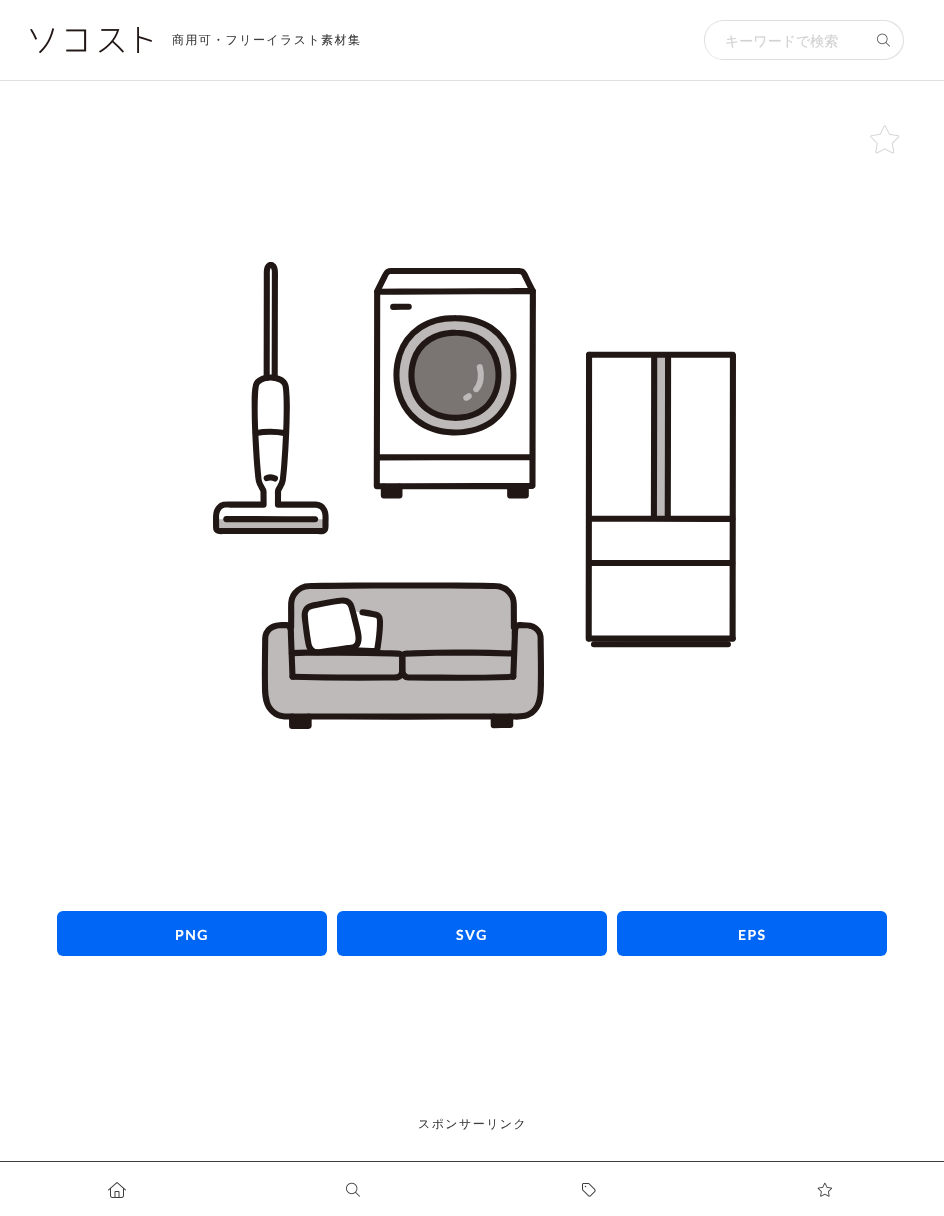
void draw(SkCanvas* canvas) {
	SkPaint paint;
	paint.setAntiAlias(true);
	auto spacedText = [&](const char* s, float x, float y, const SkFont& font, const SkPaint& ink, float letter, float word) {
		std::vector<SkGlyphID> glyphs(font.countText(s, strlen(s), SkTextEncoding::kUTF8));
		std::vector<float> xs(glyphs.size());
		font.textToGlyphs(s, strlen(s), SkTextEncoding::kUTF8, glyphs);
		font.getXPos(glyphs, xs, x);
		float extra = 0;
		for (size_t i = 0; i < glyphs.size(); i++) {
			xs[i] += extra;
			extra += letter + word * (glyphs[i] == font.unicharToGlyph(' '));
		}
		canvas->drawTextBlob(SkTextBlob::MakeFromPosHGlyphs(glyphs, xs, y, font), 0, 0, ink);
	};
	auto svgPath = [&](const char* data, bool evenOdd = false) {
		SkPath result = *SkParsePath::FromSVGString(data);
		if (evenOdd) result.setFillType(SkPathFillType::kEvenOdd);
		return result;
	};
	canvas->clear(0xffffffff);
	paint.setColor(0xffe0e0e0);
	canvas->drawRect(SkRect::MakeXYWH(0, 80, 944, 1), paint);
	canvas->drawImageRect(SkImages::DeferredFromEncodedData(SkData::MakeFromFileName("img1.png")), SkRect::MakeXYWH(30, 27, 122, 26), SkSamplingOptions());
	SkFont f1(fontMgr->matchFamilyStyle("WenQuanYi Zen Hei", SkFontStyle(500, SkFontStyle::kNormal_Width, SkFontStyle::kUpright_Slant)), 12);
	f1.setSubpixel(true);
	paint.setColor(0xff3e3e3e);
	spacedText("商用可・フリーイラスト素材集", 172, 44, f1, paint, 1.4, 0);
	paint.setColor(0xffdfdfdf);
	canvas->drawPath(svgPath("M724 20H864V60H724C713 60 704 51 704 40C704 29 713 20 724 20ZM724 21H864V59H720C698 54 701 21 724 21Z", true), paint);
	SkFont f2(fontMgr->matchFamilyStyle("WenQuanYi Zen Hei", SkFontStyle(500, SkFontStyle::kNormal_Width, SkFontStyle::kUpright_Slant)), 14);
	f2.setSubpixel(true);
	paint.setColor(0xffd1d1d1);
	canvas->drawString("キーワードで検索", 725, 46, f2, paint);
	paint.setColor(0xffdfdfdf);
	canvas->drawPath(svgPath("M864 20H884C895 20 904 29 904 40C904 51 895 60 884 60H864ZM864 21H884C894 21 903 30 903 40C903 50 894 59 884 59H864Z", true), paint);
	canvas->drawImageRect(SkImages::DeferredFromEncodedData(SkData::MakeFromFileName("img2.png")), SkRect::MakeXYWH(877, 33, 13, 14), SkSamplingOptions());
	canvas->drawImageRect(SkImages::DeferredFromEncodedData(SkData::MakeFromFileName("img3.png")), SkRect::MakeXYWH(870, 125, 30, 29), SkSamplingOptions());
	canvas->drawImageRect(SkImages::DeferredFromEncodedData(SkData::MakeFromFileName("img4.png")), SkRect::MakeXYWH(213, 262, 523, 467), SkSamplingOptions());
	paint.setColor(0xff0066f5);
	canvas->drawRoundRect(SkRect::MakeXYWH(57, 911, 270, 45), 6, 6, paint);
	SkFont f3(fontMgr->matchFamilyStyle("Lato", SkFontStyle::Bold()), 14);
	f3.setSubpixel(true);
	paint.setColor(0xffffffff);
	spacedText("PNG", 175, 940, f3, paint, 1.4, 0);
	paint.setColor(0xff0066f5);
	canvas->drawRoundRect(SkRect::MakeXYWH(337, 911, 270, 45), 6, 6, paint);
	paint.setColor(0xffffffff);
	spacedText("SVG", 456, 940, f3, paint, 1.4, 0);
	paint.setColor(0xff0066f5);
	canvas->drawRoundRect(SkRect::MakeXYWH(617, 911, 270, 45), 6, 6, paint);
	paint.setColor(0xffffffff);
	spacedText("EPS", 738, 940, f3, paint, 1.4, 0);
	paint.setColor(0xff3e3e3e);
	spacedText("スポンサーリンク", 418, 1128, f1, paint, 1.4, 0);
	canvas->drawRect(SkRect::MakeXYWH(0, 1161, 944, 1), paint);
	canvas->drawImageRect(SkImages::DeferredFromEncodedData(SkData::MakeFromFileName("img5.png")), SkRect::MakeXYWH(108, 1182, 18, 16), SkSamplingOptions());
	canvas->drawImageRect(SkImages::DeferredFromEncodedData(SkData::MakeFromFileName("img6.png")), SkRect::MakeXYWH(346, 1182, 14, 15), SkSamplingOptions());
	canvas->drawImageRect(SkImages::DeferredFromEncodedData(SkData::MakeFromFileName("img7.png")), SkRect::MakeXYWH(582, 1183, 14, 14), SkSamplingOptions());
	canvas->drawImageRect(SkImages::DeferredFromEncodedData(SkData::MakeFromFileName("img8.png")), SkRect::MakeXYWH(817, 1182, 16, 15), SkSamplingOptions());
}
